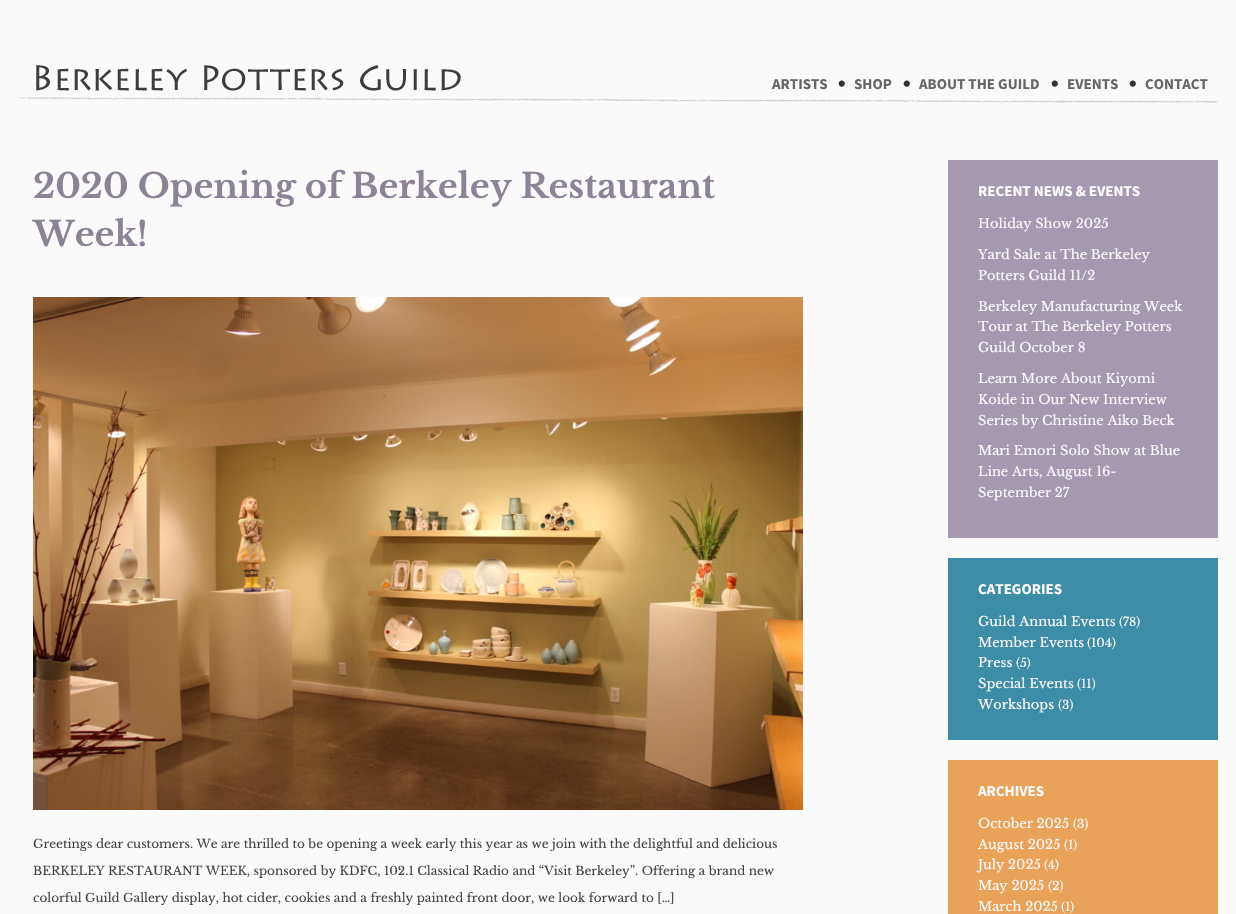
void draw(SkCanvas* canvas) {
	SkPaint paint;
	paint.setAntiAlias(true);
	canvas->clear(0xfffafafa);
	canvas->drawImageRect(SkImages::DeferredFromEncodedData(SkData::MakeFromFileName("img1.png")), SkRect::MakeXYWH(18, 97, 1200, 6), SkSamplingOptions());
	canvas->drawImageRect(SkImages::DeferredFromEncodedData(SkData::MakeFromFileName("img2.png")), SkRect::MakeXYWH(36, 65, 425, 26), SkSamplingOptions());
	SkFont f1(fontMgr->matchFamilyStyle("Source Sans Pro", SkFontStyle::Bold()), 15);
	f1.setSubpixel(true);
	paint.setColor(0xff646667);
	canvas->drawString("ARTISTS", 772, 89, f1, paint);
	SkFont f2(fontMgr->matchFamilyStyle("Libre Baskerville", SkFontStyle::Normal()), 20);
	f2.setSubpixel(true);
	paint.setColor(0xff333333);
	canvas->drawString("•", 837, 91, f2, paint);
	paint.setColor(0xff646667);
	canvas->drawString("SHOP", 854, 89, f1, paint);
	paint.setColor(0xff333333);
	canvas->drawString("•", 902, 91, f2, paint);
	paint.setColor(0xff646667);
	canvas->drawString("ABOUT THE GUILD", 919, 89, f1, paint);
	paint.setColor(0xff333333);
	canvas->drawString("•", 1050, 91, f2, paint);
	paint.setColor(0xff646667);
	canvas->drawString("EVENTS", 1067, 89, f1, paint);
	paint.setColor(0xff333333);
	canvas->drawString("•", 1128, 91, f2, paint);
	paint.setColor(0xff646667);
	canvas->drawString("CONTACT", 1145, 89, f1, paint);
	SkFont f3(fontMgr->matchFamilyStyle("Libre Baskerville", SkFontStyle::Bold()), 34);
	f3.setSubpixel(true);
	paint.setColor(0xff8d8396);
	canvas->drawString("2020 Opening of Berkeley Restaurant", 33, 198, f3, paint);
	canvas->drawString("Week!", 33, 246, f3, paint);
	canvas->drawImageRect(SkImages::DeferredFromEncodedData(SkData::MakeFromFileName("img3.png")), SkRect::MakeXYWH(33, 297, 770, 513), SkSamplingOptions());
	SkFont f4(fontMgr->matchFamilyStyle("Libre Baskerville", SkFontStyle::Normal()), 12);
	f4.setSubpixel(true);
	paint.setColor(0xff444444);
	canvas->drawString("Greetings dear customers. We are thrilled to be opening a week early this year as we join with the delightful and delicious", 33, 848, f4, paint);
	canvas->drawString("BERKELEY RESTAURANT WEEK, sponsored by KDFC, 102.1 Classical Radio and “Visit Berkeley”. Offering a brand new", 33, 875, f4, paint);
	canvas->drawString("colorful Guild Gallery display, hot cider, cookies and a freshly painted front door, we look forward to […]", 33, 902, f4, paint);
	paint.setColor(0xffa599b0);
	canvas->drawRect(SkRect::MakeXYWH(948, 160, 270, 378), paint);
	paint.setColor(0xfffafafa);
	canvas->drawString("RECENT NEWS & EVENTS", 978, 196, f1, paint);
	SkFont f5(fontMgr->matchFamilyStyle("Libre Baskerville", SkFontStyle::Normal()), 13);
	f5.setSubpixel(true);
	canvas->drawString("Holiday Show 2025", 978, 228, f5, paint);
	canvas->drawString("Yard Sale at The Berkeley", 978, 259, f5, paint);
	canvas->drawString("Potters Guild 11/2", 978, 280, f5, paint);
	canvas->drawString("Berkeley Manufacturing Week", 978, 311, f5, paint);
	canvas->drawString("Tour at The Berkeley Potters", 978, 331, f5, paint);
	canvas->drawString("Guild October 8", 978, 352, f5, paint);
	canvas->drawString("Learn More About Kiyomi", 978, 383, f5, paint);
	canvas->drawString("Koide in Our New Interview", 978, 404, f5, paint);
	canvas->drawString("Series by Christine Aiko Beck", 978, 425, f5, paint);
	canvas->drawString("Mari Emori Solo Show at Blue", 978, 455, f5, paint);
	canvas->drawString("Line Arts, August 16-", 978, 476, f5, paint);
	canvas->drawString("September 27", 978, 497, f5, paint);
	paint.setColor(0xff3d8da7);
	canvas->drawRect(SkRect::MakeXYWH(948, 558, 270, 182), paint);
	paint.setColor(0xfffafafa);
	canvas->drawString("CATEGORIES", 978, 594, f1, paint);
	canvas->drawString("Guild Annual Events", 978, 626, f5, paint);
	canvas->drawString("(78)", 1119, 626, f4, paint);
	canvas->drawString("Member Events", 978, 647, f5, paint);
	canvas->drawString("(104)", 1087, 647, f4, paint);
	canvas->drawString("Press", 978, 667, f5, paint);
	canvas->drawString("(5)", 1016, 667, f4, paint);
	canvas->drawString("Special Events", 978, 688, f5, paint);
	canvas->drawString("(11)", 1077, 688, f4, paint);
	canvas->drawString("Workshops", 978, 709, f5, paint);
	canvas->drawString("(3)", 1058, 709, f4, paint);
	paint.setColor(0xffe8a259);
	canvas->drawRect(SkRect::MakeXYWH(948, 760, 270, 154), paint);
	paint.setColor(0xfffafafa);
	canvas->drawString("ARCHIVES", 978, 796, f1, paint);
	canvas->drawString("October 2025", 978, 828, f5, paint);
	canvas->drawString("(3)", 1073, 828, f4, paint);
	canvas->drawString("August 2025", 978, 849, f5, paint);
	canvas->drawString("(1)", 1064, 849, f4, paint);
	canvas->drawString("July 2025", 978, 869, f5, paint);
	canvas->drawString("(4)", 1044, 869, f4, paint);
	canvas->drawString("May 2025", 978, 890, f5, paint);
	canvas->drawString("(2)", 1048, 890, f4, paint);
	canvas->drawString("March 2025", 978, 911, f5, paint);
	canvas->drawString("(1)", 1061, 911, f4, paint);
}
